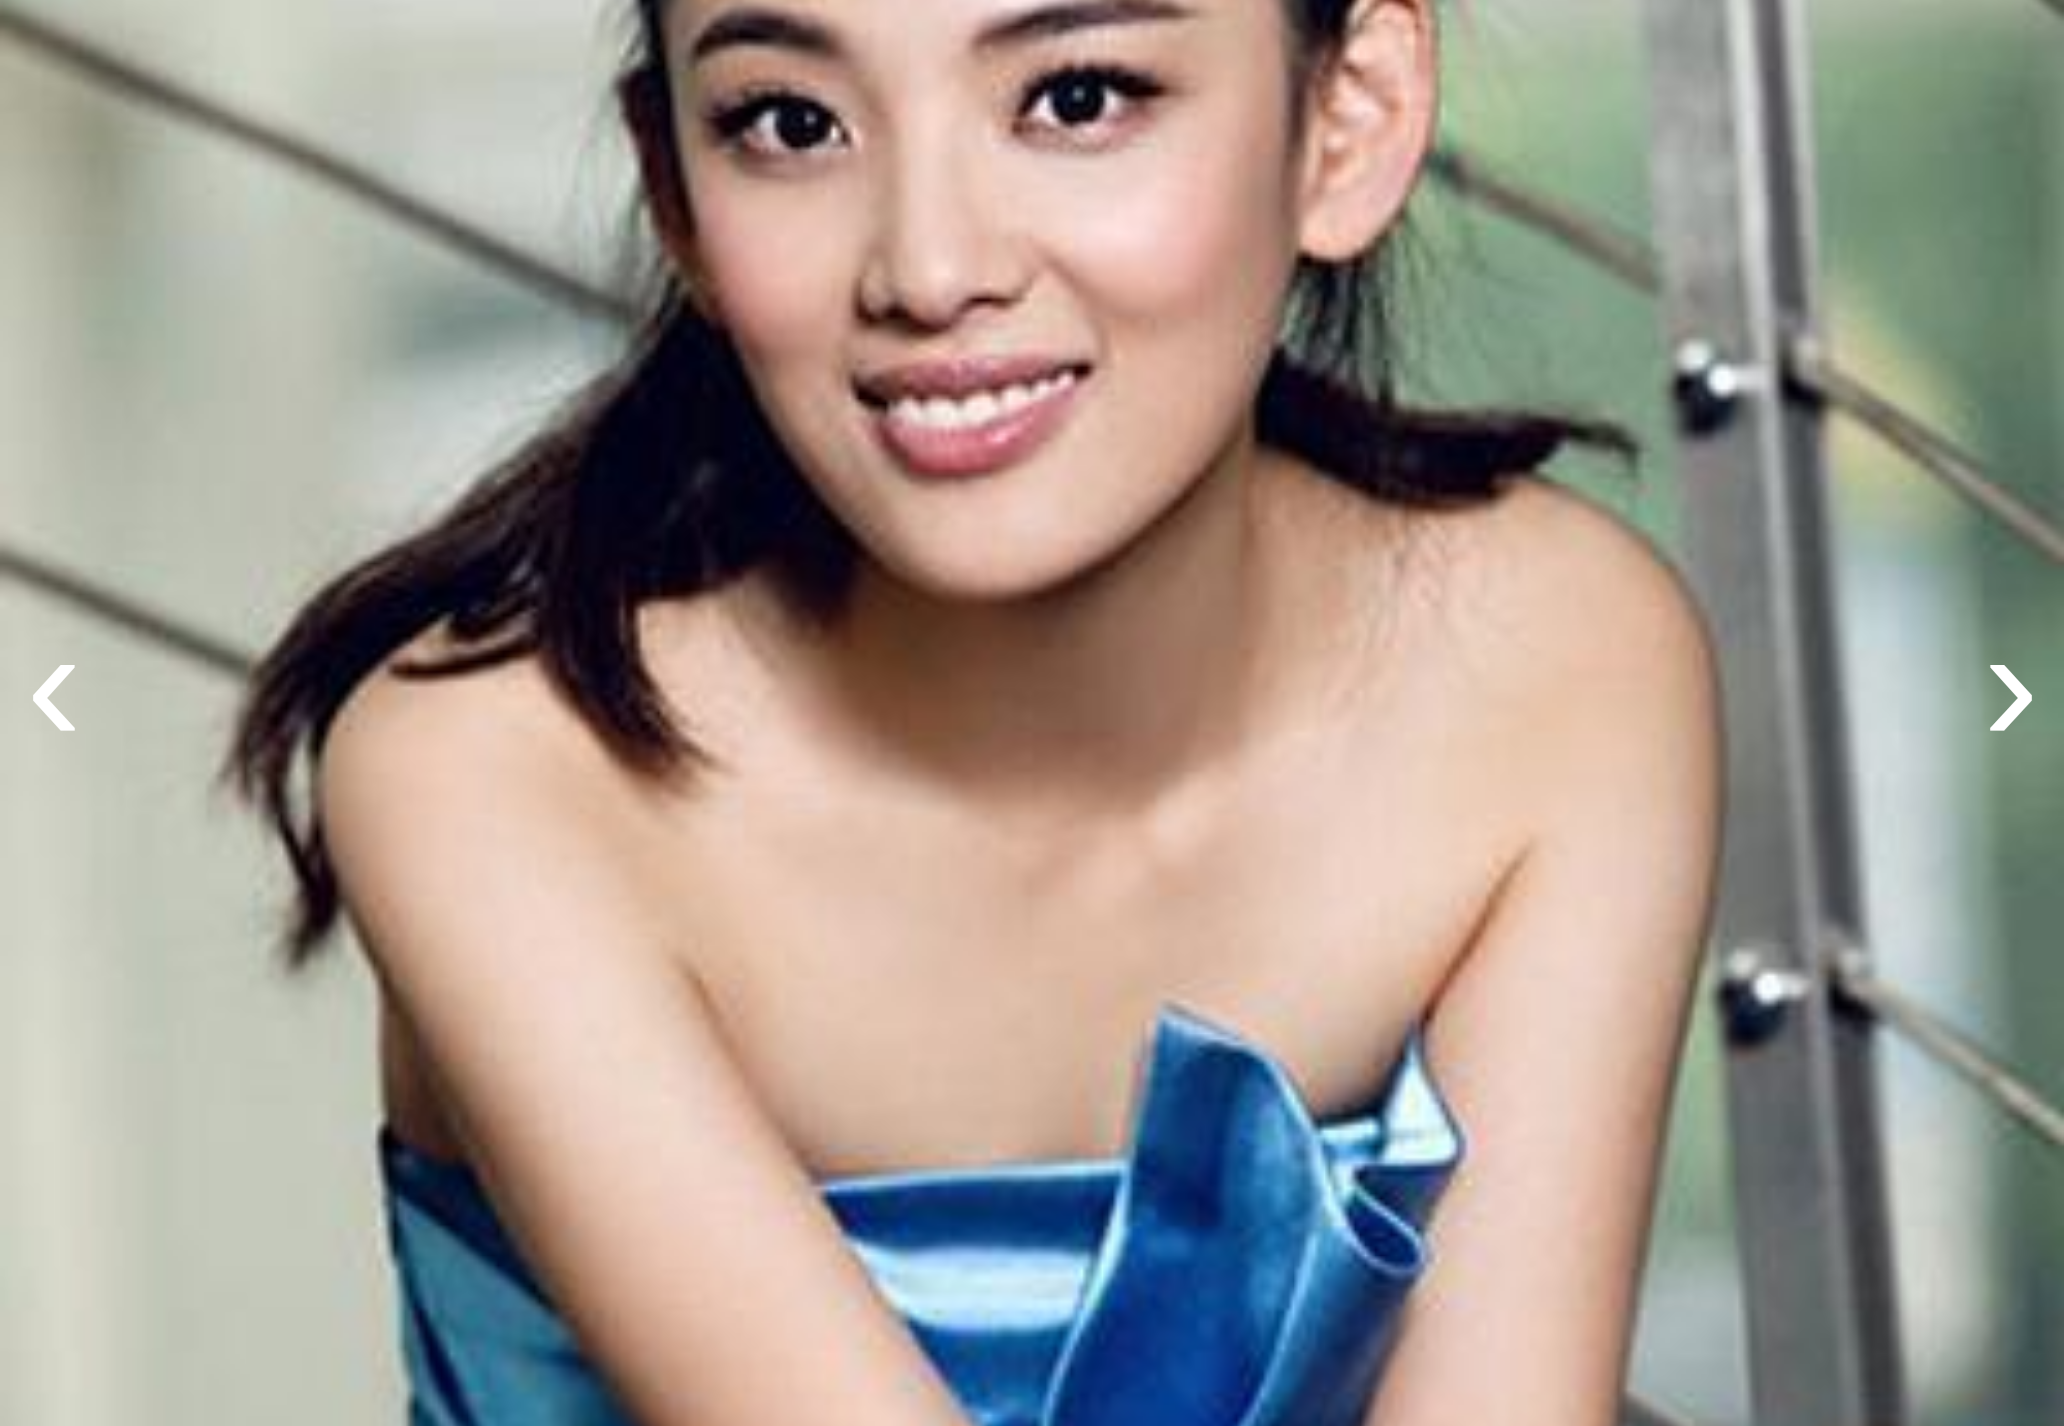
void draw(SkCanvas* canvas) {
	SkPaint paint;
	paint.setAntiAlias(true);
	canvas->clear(0xffffffff);
	canvas->drawImageRect(SkImages::DeferredFromEncodedData(SkData::MakeFromFileName("img1.png")), SkRect::MakeXYWH(0, 0, 2064, 1426), SkSamplingOptions());
	SkFont f1(fontMgr->matchFamilyStyle("Liberation Sans", SkFontStyle::Normal()), 168);
	f1.setSubpixel(true);
	paint.setColor(0xffffffff);
	canvas->drawString("‹", 26, 742, f1, paint);
	canvas->drawString("›", 1983, 742, f1, paint);
}
